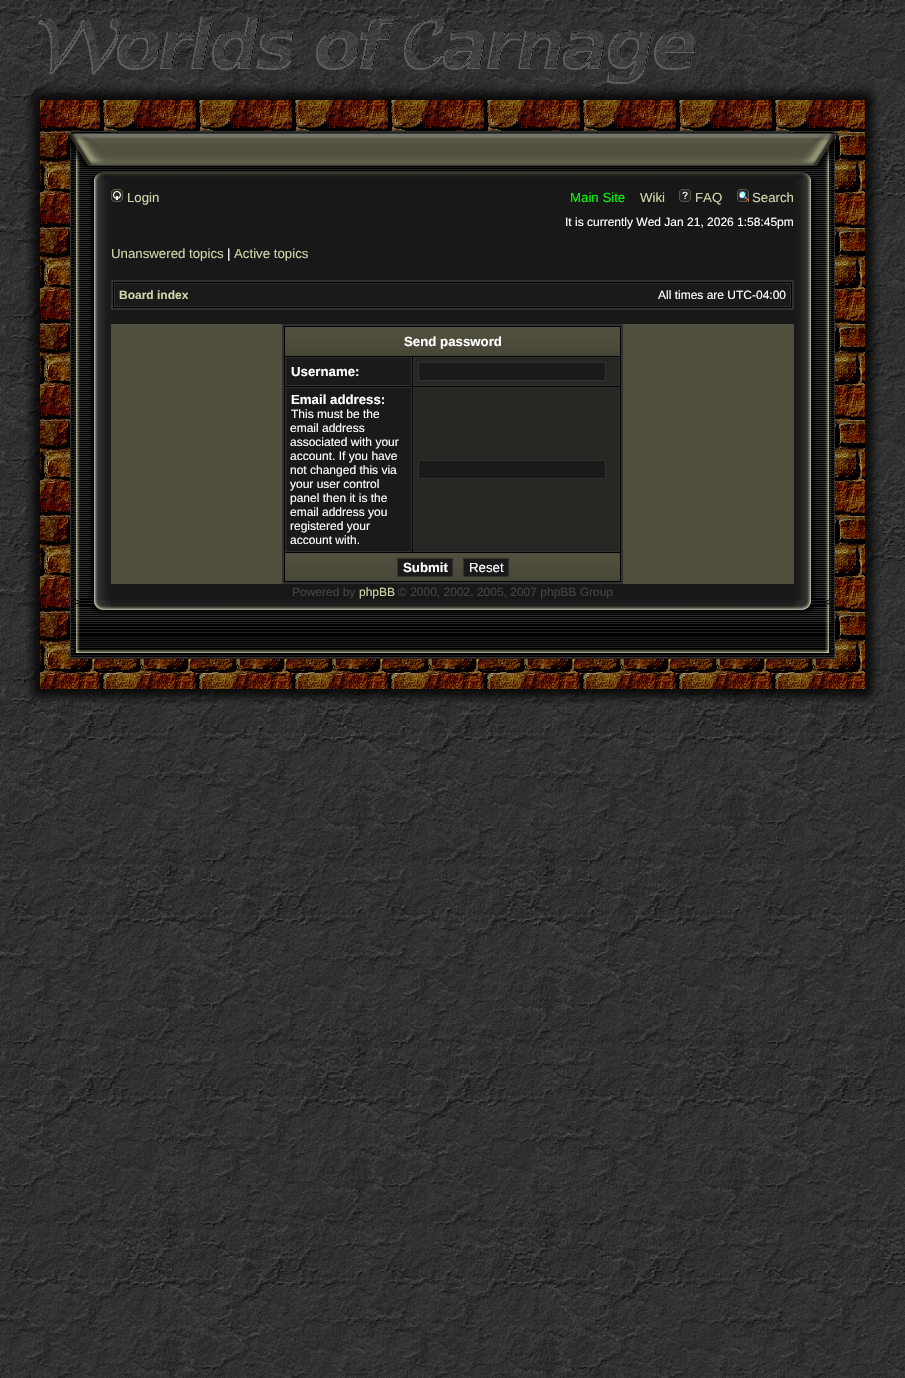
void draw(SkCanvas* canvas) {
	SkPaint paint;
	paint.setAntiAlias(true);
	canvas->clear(0xffffffff);
	canvas->drawImageRect(SkImages::DeferredFromEncodedData(SkData::MakeFromFileName("img1.png")), SkRect::MakeXYWH(0, 0, 905, 1378), SkSamplingOptions());
	canvas->drawImageRect(SkImages::DeferredFromEncodedData(SkData::MakeFromFileName("img2.png")), SkRect::MakeXYWH(38, 16, 658, 68), SkSamplingOptions());
	canvas->drawImageRect(SkImages::DeferredFromEncodedData(SkData::MakeFromFileName("img3.png")), SkRect::MakeXYWH(26, 86, 14, 14), SkSamplingOptions());
	canvas->drawImageRect(SkImages::DeferredFromEncodedData(SkData::MakeFromFileName("img4.png")), SkRect::MakeXYWH(40, 85, 825, 15), SkSamplingOptions());
	canvas->drawImageRect(SkImages::DeferredFromEncodedData(SkData::MakeFromFileName("img5.png")), SkRect::MakeXYWH(865, 86, 14, 14), SkSamplingOptions());
	canvas->drawImageRect(SkImages::DeferredFromEncodedData(SkData::MakeFromFileName("img6.png")), SkRect::MakeXYWH(25, 100, 15, 589), SkSamplingOptions());
	canvas->drawImageRect(SkImages::DeferredFromEncodedData(SkData::MakeFromFileName("img7.png")), SkRect::MakeXYWH(40, 100, 825, 589), SkSamplingOptions());
	canvas->drawImageRect(SkImages::DeferredFromEncodedData(SkData::MakeFromFileName("img8.png")), SkRect::MakeXYWH(70, 131, 41, 7), SkSamplingOptions());
	canvas->drawImageRect(SkImages::DeferredFromEncodedData(SkData::MakeFromFileName("img9.png")), SkRect::MakeXYWH(111, 131, 683, 7), SkSamplingOptions());
	canvas->drawImageRect(SkImages::DeferredFromEncodedData(SkData::MakeFromFileName("img10.png")), SkRect::MakeXYWH(794, 131, 41, 7), SkSamplingOptions());
	canvas->drawImageRect(SkImages::DeferredFromEncodedData(SkData::MakeFromFileName("img11.png")), SkRect::MakeXYWH(70, 138, 41, 26), SkSamplingOptions());
	canvas->drawImageRect(SkImages::DeferredFromEncodedData(SkData::MakeFromFileName("img12.png")), SkRect::MakeXYWH(111, 138, 683, 26), SkSamplingOptions());
	canvas->drawImageRect(SkImages::DeferredFromEncodedData(SkData::MakeFromFileName("img13.png")), SkRect::MakeXYWH(794, 138, 41, 26), SkSamplingOptions());
	canvas->drawImageRect(SkImages::DeferredFromEncodedData(SkData::MakeFromFileName("img14.png")), SkRect::MakeXYWH(70, 164, 41, 15), SkSamplingOptions());
	canvas->drawImageRect(SkImages::DeferredFromEncodedData(SkData::MakeFromFileName("img15.png")), SkRect::MakeXYWH(111, 164, 683, 15), SkSamplingOptions());
	canvas->drawImageRect(SkImages::DeferredFromEncodedData(SkData::MakeFromFileName("img16.png")), SkRect::MakeXYWH(794, 164, 41, 15), SkSamplingOptions());
	canvas->drawImageRect(SkImages::DeferredFromEncodedData(SkData::MakeFromFileName("img17.png")), SkRect::MakeXYWH(70, 179, 41, 420), SkSamplingOptions());
	paint.setColor(0xff181818);
	canvas->drawRect(SkRect::MakeXYWH(111, 179, 683, 420), paint);
	canvas->drawImageRect(SkImages::DeferredFromEncodedData(SkData::MakeFromFileName("img18.png")), SkRect::MakeXYWH(111, 189, 12, 13), SkSamplingOptions());
	SkFont f1(fontMgr->matchFamilyStyle("Liberation Sans", SkFontStyle::Normal()), 13.25);
	f1.setSubpixel(true);
	paint.setColor(0xffd3d4aa);
	canvas->drawString("Login", 127, 202, f1, paint);
	paint.setColor(0xff00ff00);
	canvas->drawString("Main Site", 570, 202, f1, paint);
	paint.setColor(0xffd3d4aa);
	canvas->drawString("Wiki", 640, 202, f1, paint);
	canvas->drawImageRect(SkImages::DeferredFromEncodedData(SkData::MakeFromFileName("img19.png")), SkRect::MakeXYWH(679, 189, 12, 13), SkSamplingOptions());
	canvas->drawString("FAQ", 695, 202, f1, paint);
	canvas->drawImageRect(SkImages::DeferredFromEncodedData(SkData::MakeFromFileName("img20.png")), SkRect::MakeXYWH(737, 189, 12, 13), SkSamplingOptions());
	canvas->drawString("Search", 752, 202, f1, paint);
	SkFont f2(fontMgr->matchFamilyStyle("Liberation Sans", SkFontStyle::Normal()), 12);
	f2.setSubpixel(true);
	paint.setColor(0xffffffff);
	canvas->drawString("It is currently Wed Jan 21, 2026 1:58:45pm", 565, 226, f2, paint);
	paint.setColor(0xffd3d4aa);
	canvas->drawString("Unanswered topics", 111, 258, f1, paint);
	paint.setColor(0xffffffff);
	canvas->drawString("|", 227, 258, f1, paint);
	paint.setColor(0xffd3d4aa);
	canvas->drawString("Active topics", 234, 258, f1, paint);
	paint.setColor(0xff000000);
	canvas->drawRect(SkRect::MakeXYWH(112, 281, 681, 28), paint);
	paint.setStroke(true);
	paint.setStrokeWidth(2);
	paint.setColor(0xff313131);
	canvas->drawRect(SkRect::MakeXYWH(112, 281, 681, 28), paint);
	paint.setStroke(false);
	paint.setColor(0xff1a1a1a);
	canvas->drawRect(SkRect::MakeXYWH(114.5, 283.5, 676, 23), paint);
	paint.setStroke(true);
	paint.setStrokeWidth(1);
	paint.setColor(0xff313131);
	canvas->drawRect(SkRect::MakeXYWH(114.5, 283.5, 676, 23), paint);
	SkFont f3(fontMgr->matchFamilyStyle("Liberation Sans", SkFontStyle::Bold()), 12);
	f3.setSubpixel(true);
	paint.setStroke(false);
	paint.setColor(0xffd3d4aa);
	canvas->drawString("Board index", 119, 299, f3, paint);
	paint.setColor(0xffffffff);
	canvas->drawString("All times are UTC-04:00", 658, 299, f2, paint);
	paint.setColor(0xff504f3d);
	canvas->drawRect(SkRect::MakeXYWH(111, 324, 683, 260), paint);
	paint.setColor(0xff000000);
	canvas->drawRect(SkRect::MakeXYWH(283, 325, 339, 258), paint);
	paint.setStroke(true);
	paint.setStrokeWidth(2);
	paint.setColor(0xff313131);
	canvas->drawRect(SkRect::MakeXYWH(283, 325, 339, 258), paint);
	canvas->drawImageRect(SkImages::DeferredFromEncodedData(SkData::MakeFromFileName("img21.png")), SkRect::MakeXYWH(285, 327, 335, 29), SkSamplingOptions());
	SkFont f4(fontMgr->matchFamilyStyle("Liberation Sans", SkFontStyle::Bold()), 13.25);
	f4.setSubpixel(true);
	paint.setStroke(false);
	paint.setColor(0xffffffff);
	canvas->drawString("Send password", 404, 346, f4, paint);
	paint.setColor(0xff1a1a1a);
	canvas->drawRect(SkRect::MakeXYWH(285.5, 357.5, 126, 28), paint);
	paint.setStroke(true);
	paint.setStrokeWidth(1);
	paint.setColor(0xff313131);
	canvas->drawRect(SkRect::MakeXYWH(285.5, 357.5, 126, 28), paint);
	paint.setStroke(false);
	paint.setColor(0xffffffff);
	canvas->drawString("Username:", 291, 376, f4, paint);
	paint.setColor(0xff262623);
	canvas->drawRect(SkRect::MakeXYWH(413.5, 357.5, 206, 28), paint);
	paint.setStroke(true);
	paint.setColor(0xff313131);
	canvas->drawRect(SkRect::MakeXYWH(413.5, 357.5, 206, 28), paint);
	paint.setStroke(false);
	paint.setColor(0xff1a1a1a);
	canvas->drawRect(SkRect::MakeXYWH(418.5, 362.5, 187, 18), paint);
	paint.setStroke(true);
	paint.setColor(0xff313131);
	canvas->drawRect(SkRect::MakeXYWH(418.5, 362.5, 187, 18), paint);
	paint.setStroke(false);
	paint.setColor(0xff1a1a1a);
	canvas->drawRect(SkRect::MakeXYWH(285.5, 387.5, 126, 164), paint);
	paint.setStroke(true);
	paint.setColor(0xff313131);
	canvas->drawRect(SkRect::MakeXYWH(285.5, 387.5, 126, 164), paint);
	paint.setStroke(false);
	paint.setColor(0xffffffff);
	canvas->drawString("Email address:", 291, 404, f4, paint);
	canvas->drawString("This must be the", 291, 418, f2, paint);
	canvas->drawString("email address", 290, 432, f2, paint);
	canvas->drawString("associated with your", 290, 446, f2, paint);
	canvas->drawString("account. If you have", 290, 460, f2, paint);
	canvas->drawString("not changed this via", 290, 474, f2, paint);
	canvas->drawString("your user control", 290, 488, f2, paint);
	canvas->drawString("panel then it is the", 290, 502, f2, paint);
	canvas->drawString("email address you", 290, 516, f2, paint);
	canvas->drawString("registered your", 290, 530, f2, paint);
	canvas->drawString("account with.", 290, 544, f2, paint);
	paint.setColor(0xff262623);
	canvas->drawRect(SkRect::MakeXYWH(413.5, 387.5, 206, 164), paint);
	paint.setStroke(true);
	paint.setColor(0xff313131);
	canvas->drawRect(SkRect::MakeXYWH(413.5, 387.5, 206, 164), paint);
	paint.setStroke(false);
	paint.setColor(0xff1a1a1a);
	canvas->drawRect(SkRect::MakeXYWH(418.5, 460.5, 187, 18), paint);
	paint.setStroke(true);
	paint.setColor(0xff313131);
	canvas->drawRect(SkRect::MakeXYWH(418.5, 460.5, 187, 18), paint);
	canvas->drawImageRect(SkImages::DeferredFromEncodedData(SkData::MakeFromFileName("img22.png")), SkRect::MakeXYWH(285, 553, 335, 28), SkSamplingOptions());
	paint.setStroke(false);
	paint.setColor(0xff1a1a1a);
	canvas->drawRect(SkRect::MakeXYWH(397.5, 558.5, 55, 18), paint);
	paint.setStroke(true);
	paint.setColor(0xff313131);
	canvas->drawRect(SkRect::MakeXYWH(397.5, 558.5, 55, 18), paint);
	paint.setStroke(false);
	paint.setColor(0xffffffff);
	canvas->drawString("Submit", 403, 572, f4, paint);
	paint.setColor(0xff1a1a1a);
	canvas->drawRect(SkRect::MakeXYWH(463.5, 558.5, 45, 18), paint);
	paint.setStroke(true);
	paint.setColor(0xff313131);
	canvas->drawRect(SkRect::MakeXYWH(463.5, 558.5, 45, 18), paint);
	paint.setStroke(false);
	paint.setColor(0xffffffff);
	canvas->drawString("Reset", 469, 572, f1, paint);
	paint.setColor(0xff444444);
	canvas->drawString("Powered by", 292, 596, f2, paint);
	paint.setColor(0xffd3d4aa);
	canvas->drawString("phpBB", 359, 596, f2, paint);
	paint.setColor(0xff444444);
	canvas->drawString("© 2000, 2002, 2005, 2007 phpBB Group", 398, 596, f2, paint);
	canvas->drawImageRect(SkImages::DeferredFromEncodedData(SkData::MakeFromFileName("img23.png")), SkRect::MakeXYWH(794, 179, 41, 420), SkSamplingOptions());
	canvas->drawImageRect(SkImages::DeferredFromEncodedData(SkData::MakeFromFileName("img24.png")), SkRect::MakeXYWH(70, 599, 41, 36), SkSamplingOptions());
	canvas->drawImageRect(SkImages::DeferredFromEncodedData(SkData::MakeFromFileName("img25.png")), SkRect::MakeXYWH(111, 599, 683, 36), SkSamplingOptions());
	canvas->drawImageRect(SkImages::DeferredFromEncodedData(SkData::MakeFromFileName("img26.png")), SkRect::MakeXYWH(794, 599, 41, 36), SkSamplingOptions());
	canvas->drawImageRect(SkImages::DeferredFromEncodedData(SkData::MakeFromFileName("img27.png")), SkRect::MakeXYWH(70, 635, 41, 14), SkSamplingOptions());
	canvas->drawImageRect(SkImages::DeferredFromEncodedData(SkData::MakeFromFileName("img28.png")), SkRect::MakeXYWH(111, 635, 683, 14), SkSamplingOptions());
	canvas->drawImageRect(SkImages::DeferredFromEncodedData(SkData::MakeFromFileName("img29.png")), SkRect::MakeXYWH(794, 635, 41, 14), SkSamplingOptions());
	canvas->drawImageRect(SkImages::DeferredFromEncodedData(SkData::MakeFromFileName("img30.png")), SkRect::MakeXYWH(70, 649, 41, 10), SkSamplingOptions());
	canvas->drawImageRect(SkImages::DeferredFromEncodedData(SkData::MakeFromFileName("img31.png")), SkRect::MakeXYWH(111, 649, 683, 10), SkSamplingOptions());
	canvas->drawImageRect(SkImages::DeferredFromEncodedData(SkData::MakeFromFileName("img32.png")), SkRect::MakeXYWH(794, 649, 41, 10), SkSamplingOptions());
	canvas->drawImageRect(SkImages::DeferredFromEncodedData(SkData::MakeFromFileName("img33.png")), SkRect::MakeXYWH(865, 100, 15, 589), SkSamplingOptions());
	canvas->drawImageRect(SkImages::DeferredFromEncodedData(SkData::MakeFromFileName("img34.png")), SkRect::MakeXYWH(26, 689, 14, 14), SkSamplingOptions());
	canvas->drawImageRect(SkImages::DeferredFromEncodedData(SkData::MakeFromFileName("img35.png")), SkRect::MakeXYWH(40, 689, 825, 15), SkSamplingOptions());
	canvas->drawImageRect(SkImages::DeferredFromEncodedData(SkData::MakeFromFileName("img36.png")), SkRect::MakeXYWH(865, 689, 14, 14), SkSamplingOptions());
}
